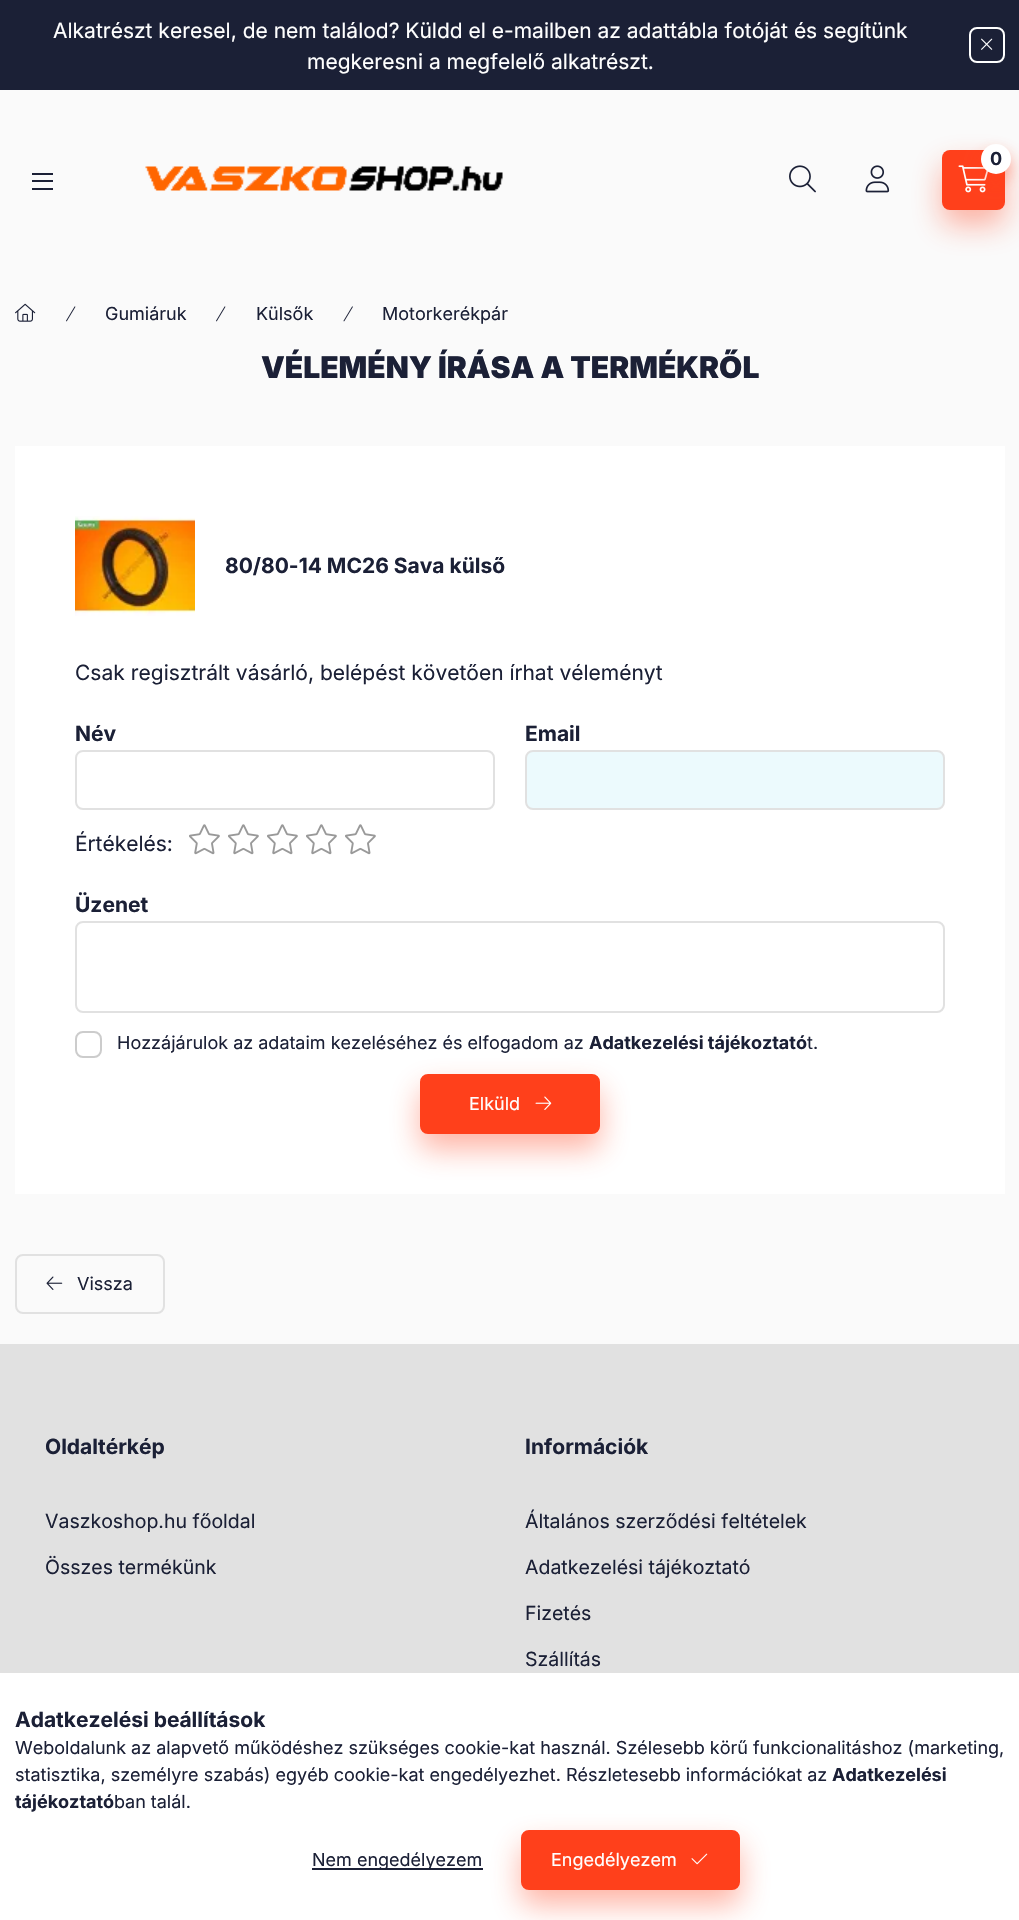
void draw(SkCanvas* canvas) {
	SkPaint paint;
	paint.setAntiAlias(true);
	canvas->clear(0xfffafafa);
	paint.setColor(0xff1b2036);
	canvas->drawRect(SkRect::MakeXYWH(0, 0, 1019, 90), paint);
	SkFont f1(fontMgr->matchFamilyStyle("Inter", SkFontStyle::Normal()), 21);
	f1.setSubpixel(true);
	paint.setColor(0xffffffff);
	canvas->drawString("Alkatrészt keresel, de nem találod? Küldd el e-mailben az adattábla fotóját és segítünk", 53, 38, f1, paint);
	canvas->drawString("megkeresni a megfelelő alkatrészt.", 307, 69, f1, paint);
	paint.setStroke(true);
	paint.setStrokeWidth(2);
	canvas->drawRoundRect(SkRect::MakeXYWH(970, 28, 34, 34), 7, 7, paint);
	canvas->drawImageRect(SkImages::DeferredFromEncodedData(SkData::MakeFromFileName("img1.png")), SkRect::MakeXYWH(981, 38, 12, 12), SkSamplingOptions());
	paint.setStroke(false);
	paint.setColor(0x66ff401b);
	paint.setMaskFilter(SkMaskFilter::MakeBlur(kNormal_SkBlurStyle, 15));
	canvas->drawRoundRect(SkRect::MakeXYWH(942, 165, 63, 60), 8, 8, paint);
	paint.setMaskFilter(nullptr);
	paint.setColor(0xffff401b);
	canvas->drawRoundRect(SkRect::MakeXYWH(942, 150, 63, 60), 8, 8, paint);
	canvas->drawImageRect(SkImages::DeferredFromEncodedData(SkData::MakeFromFileName("img2.png")), SkRect::MakeXYWH(958, 165, 31, 28), SkSamplingOptions());
	paint.setColor(0x66ff401b);
	paint.setMaskFilter(SkMaskFilter::MakeBlur(kNormal_SkBlurStyle, 7.5));
	canvas->drawRoundRect(SkRect::MakeXYWH(981, 152, 30, 30), 15, 15, paint);
	paint.setMaskFilter(nullptr);
	paint.setColor(0xffffffff);
	canvas->drawCircle(996, 159, 15, paint);
	SkFont f2(fontMgr->matchFamilyStyle("Inter", SkFontStyle::Bold()), 18);
	f2.setSubpixel(true);
	paint.setColor(0xff1b2036);
	canvas->drawString("0", 990, 165, f2, paint);
	canvas->drawImageRect(SkImages::DeferredFromEncodedData(SkData::MakeFromFileName("img3.png")), SkRect::MakeXYWH(789, 165, 27, 28), SkSamplingOptions());
	canvas->drawImageRect(SkImages::DeferredFromEncodedData(SkData::MakeFromFileName("img4.png")), SkRect::MakeXYWH(865, 165, 25, 28), SkSamplingOptions());
	canvas->drawRect(SkRect::MakeXYWH(32, 173, 21, 2), paint);
	canvas->drawRect(SkRect::MakeXYWH(32, 180, 21, 2), paint);
	canvas->drawRect(SkRect::MakeXYWH(32, 188, 21, 2), paint);
	canvas->drawImageRect(SkImages::DeferredFromEncodedData(SkData::MakeFromFileName("img5.png")), SkRect::MakeXYWH(145, 166, 358, 25), SkSamplingOptions());
	canvas->drawImageRect(SkImages::DeferredFromEncodedData(SkData::MakeFromFileName("img6.png")), SkRect::MakeXYWH(15, 303, 21, 19), SkSamplingOptions());
	canvas->drawImageRect(SkImages::DeferredFromEncodedData(SkData::MakeFromFileName("img7.png")), SkRect::MakeXYWH(66, 306, 10, 16), SkSamplingOptions());
	SkFont f3(fontMgr->matchFamilyStyle("Inter", SkFontStyle::Normal()), 18);
	f3.setSubpixel(true);
	canvas->drawString("Gumiáruk", 105, 320, f3, paint);
	canvas->drawImageRect(SkImages::DeferredFromEncodedData(SkData::MakeFromFileName("img7.png")), SkRect::MakeXYWH(216, 306, 10, 16), SkSamplingOptions());
	canvas->drawString("Külsők", 256, 320, f3, paint);
	canvas->drawImageRect(SkImages::DeferredFromEncodedData(SkData::MakeFromFileName("img8.png")), SkRect::MakeXYWH(343, 306, 10, 16), SkSamplingOptions());
	canvas->drawString("Motorkerékpár", 382, 320, f3, paint);
	SkFont f4(fontMgr->matchFamilyStyle("Inter", SkFontStyle(900, SkFontStyle::kNormal_Width, SkFontStyle::kUpright_Slant)), 30);
	f4.setSubpixel(true);
	canvas->drawString("VÉLEMÉNY ÍRÁSA A TERMÉKRŐL", 261, 378, f4, paint);
	paint.setColor(0xffffffff);
	canvas->drawRect(SkRect::MakeXYWH(15, 446, 990, 748), paint);
	canvas->drawImageRect(SkImages::DeferredFromEncodedData(SkData::MakeFromFileName("img9.png")), SkRect::MakeXYWH(75, 516, 120, 100), SkSamplingOptions());
	SkFont f5(fontMgr->matchFamilyStyle("Inter", SkFontStyle::Bold()), 21);
	f5.setSubpixel(true);
	paint.setColor(0xff1b2036);
	canvas->drawString("80/80-14 MC26 Sava külső", 225, 573, f5, paint);
	canvas->drawString("Csak regisztrált vásárló, belépést követően írhat véleményt", 75, 680, f1, paint);
	canvas->drawString("Név", 75, 741, f5, paint);
	paint.setStroke(true);
	paint.setColor(0xffe1e1e1);
	canvas->drawRoundRect(SkRect::MakeXYWH(76, 751, 418, 58), 7, 7, paint);
	paint.setStroke(false);
	paint.setColor(0xff1b2036);
	canvas->drawString("Email", 525, 741, f5, paint);
	paint.setColor(0xffecfafd);
	canvas->drawRoundRect(SkRect::MakeXYWH(526, 751, 418, 58), 7, 7, paint);
	paint.setStroke(true);
	paint.setColor(0xffe1e1e1);
	canvas->drawRoundRect(SkRect::MakeXYWH(526, 751, 418, 58), 7, 7, paint);
	paint.setStroke(false);
	paint.setColor(0xff1b2036);
	canvas->drawString("Értékelés:", 75, 851, f1, paint);
	canvas->drawImageRect(SkImages::DeferredFromEncodedData(SkData::MakeFromFileName("img10.png")), SkRect::MakeXYWH(189, 824, 31, 31), SkSamplingOptions());
	canvas->drawImageRect(SkImages::DeferredFromEncodedData(SkData::MakeFromFileName("img10.png")), SkRect::MakeXYWH(228, 824, 31, 31), SkSamplingOptions());
	canvas->drawImageRect(SkImages::DeferredFromEncodedData(SkData::MakeFromFileName("img10.png")), SkRect::MakeXYWH(267, 824, 31, 31), SkSamplingOptions());
	canvas->drawImageRect(SkImages::DeferredFromEncodedData(SkData::MakeFromFileName("img10.png")), SkRect::MakeXYWH(306, 824, 31, 31), SkSamplingOptions());
	canvas->drawImageRect(SkImages::DeferredFromEncodedData(SkData::MakeFromFileName("img10.png")), SkRect::MakeXYWH(345, 824, 31, 31), SkSamplingOptions());
	canvas->drawString("Üzenet", 75, 912, f5, paint);
	paint.setStroke(true);
	paint.setColor(0xffe1e1e1);
	canvas->drawRoundRect(SkRect::MakeXYWH(76, 922, 868, 90), 7, 7, paint);
	paint.setColor(0xffcccccc);
	canvas->drawRoundRect(SkRect::MakeXYWH(76, 1032, 25, 25), 7, 7, paint);
	paint.setStroke(false);
	paint.setColor(0x66ff401b);
	paint.setMaskFilter(SkMaskFilter::MakeBlur(kNormal_SkBlurStyle, 15));
	canvas->drawRoundRect(SkRect::MakeXYWH(420, 1089, 180, 60), 8, 8, paint);
	paint.setMaskFilter(nullptr);
	paint.setColor(0xff1b2036);
	canvas->drawString("Hozzájárulok az adataim kezeléséhez és elfogadom az", 117, 1049, f3, paint);
	canvas->drawString("Adatkezelési tájékoztató", 589, 1049, f2, paint);
	canvas->drawString("t.", 807, 1049, f3, paint);
	paint.setColor(0xffff401b);
	canvas->drawRoundRect(SkRect::MakeXYWH(421, 1075, 178, 58), 7, 7, paint);
	paint.setStroke(true);
	canvas->drawRoundRect(SkRect::MakeXYWH(421, 1075, 178, 58), 7, 7, paint);
	paint.setStroke(false);
	paint.setColor(0xffffffff);
	canvas->drawString("Elküld", 469, 1110, f3, paint);
	canvas->drawImageRect(SkImages::DeferredFromEncodedData(SkData::MakeFromFileName("img11.png")), SkRect::MakeXYWH(535, 1096, 17, 14), SkSamplingOptions());
	paint.setStroke(true);
	paint.setColor(0xffe1e1e1);
	canvas->drawRoundRect(SkRect::MakeXYWH(16, 1255, 148, 58), 7, 7, paint);
	canvas->drawImageRect(SkImages::DeferredFromEncodedData(SkData::MakeFromFileName("img12.png")), SkRect::MakeXYWH(46, 1276, 17, 14), SkSamplingOptions());
	paint.setStroke(false);
	paint.setColor(0xff1b2036);
	canvas->drawString("Vissza", 77, 1290, f3, paint);
	paint.setColor(0xffe1e1e1);
	canvas->drawRect(SkRect::MakeXYWH(0, 1344, 1019, 329), paint);
	paint.setColor(0xff1b2036);
	canvas->drawString("Oldaltérkép", 45, 1454, f5, paint);
	SkFont f6(fontMgr->matchFamilyStyle("Inter", SkFontStyle::Normal()), 19.5);
	f6.setSubpixel(true);
	canvas->drawString("Vaszkoshop.hu főoldal", 45, 1528, f6, paint);
	canvas->drawString("Összes termékünk", 45, 1574, f6, paint);
	canvas->drawString("Információk", 525, 1454, f5, paint);
	canvas->drawString("Általános szerződési feltételek", 525, 1528, f6, paint);
	canvas->drawString("Adatkezelési tájékoztató", 525, 1574, f6, paint);
	canvas->drawString("Fizetés", 525, 1620, f6, paint);
	canvas->drawString("Szállítás", 525, 1666, f6, paint);
	paint.setColor(0xffffffff);
	canvas->drawRect(SkRect::MakeXYWH(0, 1673, 1019, 247), paint);
	paint.setColor(0xff1b2036);
	canvas->drawString("Adatkezelési beállítások", 15, 1727, f5, paint);
	canvas->drawString("Weboldalunk az alapvető működéshez szükséges cookie-kat használ. Szélesebb körű funkcionalitáshoz (marketing,", 15, 1754, f3, paint);
	canvas->drawString("statisztika, személyre szabás) egyéb cookie-kat engedélyezhet. Részletesebb információkat az", 15, 1781, f3, paint);
	canvas->drawString("Adatkezelési", 832, 1781, f2, paint);
	canvas->drawString("tájékoztató", 15, 1808, f2, paint);
	canvas->drawString("ban talál.", 114, 1808, f3, paint);
	canvas->drawRect(SkRect::MakeXYWH(312, 1868, 171, 2), paint);
	canvas->drawString("Nem engedélyezem", 312, 1866, f3, paint);
	paint.setColor(0x66ff401b);
	paint.setMaskFilter(SkMaskFilter::MakeBlur(kNormal_SkBlurStyle, 15));
	canvas->drawRoundRect(SkRect::MakeXYWH(521, 1845, 219, 60), 8, 8, paint);
	paint.setMaskFilter(nullptr);
	paint.setColor(0xffff401b);
	canvas->drawRoundRect(SkRect::MakeXYWH(522, 1831, 217, 58), 7, 7, paint);
	paint.setStroke(true);
	canvas->drawRoundRect(SkRect::MakeXYWH(522, 1831, 217, 58), 7, 7, paint);
	paint.setStroke(false);
	paint.setColor(0xffffffff);
	canvas->drawString("Engedélyezem", 551, 1866, f3, paint);
	canvas->drawImageRect(SkImages::DeferredFromEncodedData(SkData::MakeFromFileName("img13.png")), SkRect::MakeXYWH(691, 1853, 17, 12), SkSamplingOptions());
}
